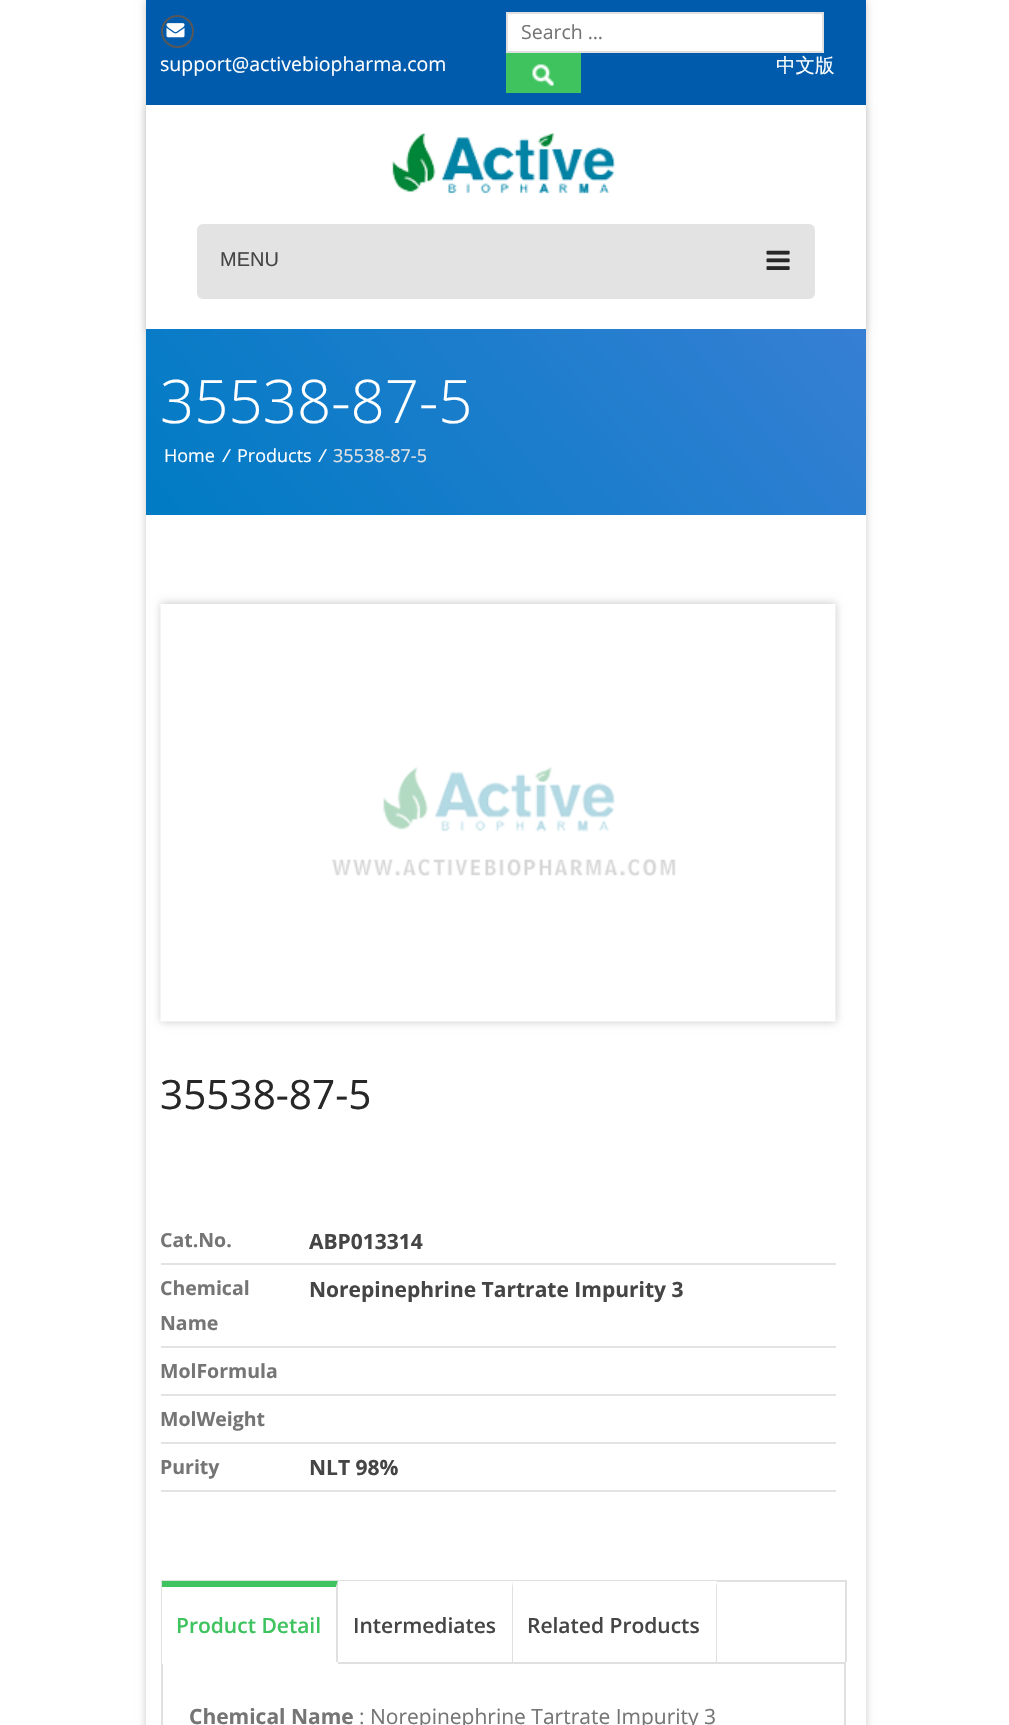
void draw(SkCanvas* canvas) {
	SkPaint paint;
	paint.setAntiAlias(true);
	auto svgPath = [&](const char* data, bool evenOdd = false) {
		SkPath result = *SkParsePath::FromSVGString(data);
		if (evenOdd) result.setFillType(SkPathFillType::kEvenOdd);
		return result;
	};
	canvas->clear(0xffffffff);
	paint.setColor(0x33000000);
	paint.setMaskFilter(SkMaskFilter::MakeBlur(kNormal_SkBlurStyle, 4));
	canvas->drawRect(SkRect::MakeXYWH(146, 0, 720, 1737), paint);
	paint.setMaskFilter(nullptr);
	paint.setColor(0xffffffff);
	canvas->drawRect(SkRect::MakeXYWH(146, 515, 720, 1210), paint);
	paint.setColor(0x1a000000);
	paint.setMaskFilter(SkMaskFilter::MakeBlur(kNormal_SkBlurStyle, 4));
	canvas->drawRect(SkRect::MakeXYWH(146, 107, 720, 223), paint);
	paint.setMaskFilter(nullptr);
	paint.setColor(0xff005bac);
	canvas->drawRect(SkRect::MakeXYWH(146, 0, 720, 105), paint);
	paint.setStroke(true);
	paint.setStrokeWidth(2);
	paint.setColor(0xff575757);
	canvas->drawCircle(177.5, 31.5, 15.5, paint);
	canvas->drawImageRect(SkImages::DeferredFromEncodedData(SkData::MakeFromFileName("img1.png")), SkRect::MakeXYWH(166, 23, 19, 15), SkSamplingOptions());
	SkFont f1(fontMgr->matchFamilyStyle("Open Sans", SkFontStyle::Normal()), 19.5);
	f1.setSubpixel(true);
	paint.setStroke(false);
	paint.setColor(0xffffffff);
	canvas->drawString("support@activebiopharma.com", 160, 71, f1, paint);
	canvas->drawRect(SkRect::MakeXYWH(507, 13, 316, 39), paint);
	paint.setStroke(true);
	paint.setColor(0xffe0e0e0);
	canvas->drawRect(SkRect::MakeXYWH(507, 13, 316, 39), paint);
	paint.setStroke(false);
	paint.setColor(0xff757575);
	canvas->drawString("Search …", 521, 39, f1, paint);
	paint.setColor(0xff3fc35f);
	canvas->drawRect(SkRect::MakeXYWH(506, 53, 75, 40), paint);
	canvas->drawImageRect(SkImages::DeferredFromEncodedData(SkData::MakeFromFileName("img2.png")), SkRect::MakeXYWH(532, 64, 22, 22), SkSamplingOptions());
	SkFont f2(fontMgr->matchFamilyStyle("WenQuanYi Zen Hei", SkFontStyle(500, SkFontStyle::kNormal_Width, SkFontStyle::kUpright_Slant)), 19.5);
	f2.setSubpixel(true);
	paint.setColor(0xffffffff);
	canvas->drawString("中文版", 776, 72, f2, paint);
	canvas->drawRect(SkRect::MakeXYWH(146, 105, 720, 224), paint);
	canvas->drawImageRect(SkImages::DeferredFromEncodedData(SkData::MakeFromFileName("img3.png")), SkRect::MakeXYWH(391, 133, 225, 61), SkSamplingOptions());
	paint.setColor(0xffe3e3e3);
	canvas->drawRoundRect(SkRect::MakeXYWH(197, 224, 618, 75), 6, 6, paint);
	SkFont f3(fontMgr->matchFamilyStyle("Liberation Sans", SkFontStyle::Normal()), 20);
	f3.setSubpixel(true);
	paint.setColor(0xff454545);
	canvas->drawString("MENU", 220, 266, f3, paint);
	canvas->drawImageRect(SkImages::DeferredFromEncodedData(SkData::MakeFromFileName("img4.png")), SkRect::MakeXYWH(766, 250, 24, 20), SkSamplingOptions());
	{
		const SkColor colors[] = {0xff007bc4, 0xff367fd4};
		const float stops[] = {0, 1};
		const SkPoint ends[] = {{248, 637}, {763, 206}};
		paint.setShader(SkGradientShader::MakeLinear(ends, colors, stops, 2, SkTileMode::kClamp));
		paint.setAlpha(255);
	}
	canvas->drawRect(SkRect::MakeXYWH(146, 329, 720, 186), paint);
	SkFont f4(fontMgr->matchFamilyStyle("Open Sans", SkFontStyle(300, SkFontStyle::kNormal_Width, SkFontStyle::kUpright_Slant)), 60);
	f4.setSubpixel(true);
	paint.setShader(nullptr);
	paint.setColor(0xffffffff);
	canvas->drawString("35538-87-5", 160, 423, f4, paint);
	SkFont f5(fontMgr->matchFamilyStyle("Open Sans", SkFontStyle::Normal()), 18);
	f5.setSubpixel(true);
	canvas->drawString("Home", 164, 462, f5, paint);
	SkFont f6(fontMgr->matchFamilyStyle("Open Sans", SkFontStyle::Italic()), 18);
	f6.setSubpixel(true);
	canvas->drawString("/", 223, 462, f6, paint);
	canvas->drawString("Products", 237, 462, f5, paint);
	canvas->drawString("/", 319, 462, f6, paint);
	paint.setColor(0xffe3e3e3);
	canvas->drawString("35538-87-5", 333, 462, f5, paint);
	paint.setColor(0x33000000);
	paint.setMaskFilter(SkMaskFilter::MakeBlur(kNormal_SkBlurStyle, 4));
	canvas->drawRect(SkRect::MakeXYWH(161, 603, 675, 419), paint);
	paint.setMaskFilter(nullptr);
	canvas->drawImageRect(SkImages::DeferredFromEncodedData(SkData::MakeFromFileName("img5.png")), SkRect::MakeXYWH(160, 604, 676, 418), SkSamplingOptions());
	SkFont f7(fontMgr->matchFamilyStyle("Open Sans", SkFontStyle::Normal()), 40.5);
	f7.setSubpixel(true);
	paint.setColor(0xff272727);
	canvas->drawString("35538-87-5", 160, 1109, f7, paint);
	paint.setColor(0xffe3e3e3);
	canvas->drawRect(SkRect::MakeXYWH(161, 1263, 675, 2), paint);
	SkFont f8(fontMgr->matchFamilyStyle("Open Sans", SkFontStyle::Bold()), 19.5);
	f8.setSubpixel(true);
	paint.setColor(0xff757575);
	canvas->drawString("Cat.No.", 160, 1247, f8, paint);
	SkFont f9(fontMgr->matchFamilyStyle("Open Sans", SkFontStyle::Bold()), 21);
	f9.setSubpixel(true);
	paint.setColor(0xff454545);
	canvas->drawString("ABP013314", 309, 1249, f9, paint);
	paint.setColor(0xffe3e3e3);
	canvas->drawRect(SkRect::MakeXYWH(161, 1346, 675, 2), paint);
	paint.setColor(0xff757575);
	canvas->drawString("Chemical", 160, 1295, f8, paint);
	canvas->drawString("Name", 160, 1330, f8, paint);
	paint.setColor(0xff454545);
	canvas->drawString("Norepinephrine Tartrate Impurity 3", 309, 1297, f9, paint);
	paint.setColor(0xffe3e3e3);
	canvas->drawRect(SkRect::MakeXYWH(161, 1394, 675, 2), paint);
	paint.setColor(0xff757575);
	canvas->drawString("MolFormula", 160, 1378, f8, paint);
	paint.setColor(0xffe3e3e3);
	canvas->drawRect(SkRect::MakeXYWH(161, 1442, 675, 2), paint);
	paint.setColor(0xff757575);
	canvas->drawString("MolWeight", 160, 1426, f8, paint);
	paint.setColor(0xffe3e3e3);
	canvas->drawRect(SkRect::MakeXYWH(161, 1490, 675, 2), paint);
	paint.setColor(0xff757575);
	canvas->drawString("Purity", 160, 1474, f8, paint);
	paint.setColor(0xff454545);
	canvas->drawString("NLT 98%", 309, 1475, f9, paint);
	paint.setColor(0xffe0e0e0);
	canvas->drawRect(SkRect::MakeXYWH(161, 1580, 685, 2), paint);
	canvas->drawRect(SkRect::MakeXYWH(845, 1580, 2, 82), paint);
	canvas->drawRect(SkRect::MakeXYWH(161, 1580, 2, 82), paint);
	paint.setColor(0xffffffff);
	canvas->drawRect(SkRect::MakeXYWH(162, 1581, 176, 81), paint);
	paint.setColor(0xff3fc35f);
	canvas->drawPath(svgPath("M162 1581H338L336 1587H162Z"), paint);
	paint.setStroke(true);
	paint.setColor(0xffe0e0e0);
	canvas->drawRect(SkRect::MakeXYWH(162, 1663, 683, 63), paint);
	paint.setStroke(false);
	canvas->drawPath(svgPath("M338 1581V1664L336 1662V1587Z"), paint);
	paint.setColor(0xffffffff);
	canvas->drawRect(SkRect::MakeXYWH(162, 1662, 176, 2), paint);
	SkFont f10(fontMgr->matchFamilyStyle("Open Sans", SkFontStyle(600, SkFontStyle::kNormal_Width, SkFontStyle::kUpright_Slant)), 21);
	f10.setSubpixel(true);
	paint.setColor(0xff3fc35f);
	canvas->drawString("Product Detail", 176, 1633, f10, paint);
	paint.setColor(0xffffffff);
	canvas->drawRect(SkRect::MakeXYWH(338, 1581, 379, 1), paint);
	paint.setColor(0xffe0e0e0);
	canvas->drawPath(svgPath("M513 1581V1662H512V1587Z"), paint);
	paint.setColor(0xff454545);
	canvas->drawString("Intermediates", 353, 1633, f10, paint);
	paint.setColor(0xffe0e0e0);
	canvas->drawPath(svgPath("M717 1581V1662H716V1587Z"), paint);
	paint.setColor(0xff454545);
	canvas->drawString("Related Products", 527, 1633, f10, paint);
	paint.setColor(0xff757575);
	canvas->drawString("Chemical Name", 189, 1724, f9, paint);
	SkFont f11(fontMgr->matchFamilyStyle("Open Sans", SkFontStyle::Normal()), 21);
	f11.setSubpixel(true);
	canvas->drawString(": Norepinephrine Tartrate Impurity 3", 359, 1724, f11, paint);
}
